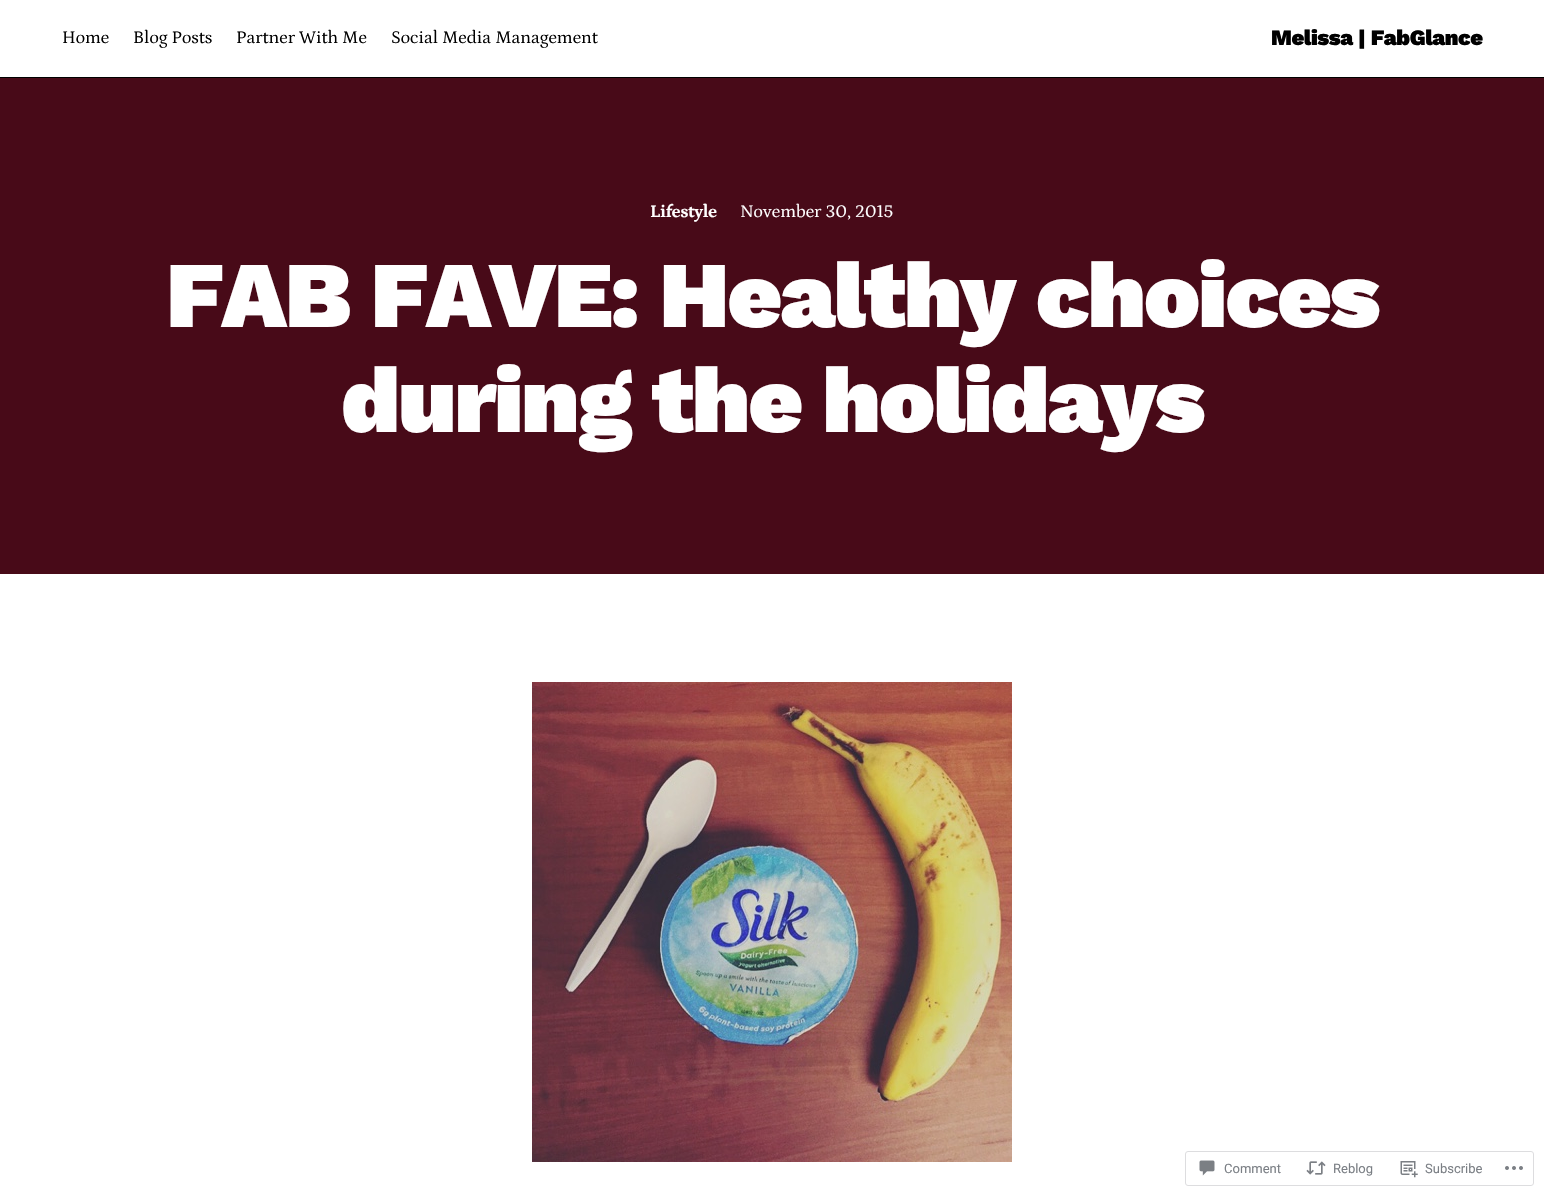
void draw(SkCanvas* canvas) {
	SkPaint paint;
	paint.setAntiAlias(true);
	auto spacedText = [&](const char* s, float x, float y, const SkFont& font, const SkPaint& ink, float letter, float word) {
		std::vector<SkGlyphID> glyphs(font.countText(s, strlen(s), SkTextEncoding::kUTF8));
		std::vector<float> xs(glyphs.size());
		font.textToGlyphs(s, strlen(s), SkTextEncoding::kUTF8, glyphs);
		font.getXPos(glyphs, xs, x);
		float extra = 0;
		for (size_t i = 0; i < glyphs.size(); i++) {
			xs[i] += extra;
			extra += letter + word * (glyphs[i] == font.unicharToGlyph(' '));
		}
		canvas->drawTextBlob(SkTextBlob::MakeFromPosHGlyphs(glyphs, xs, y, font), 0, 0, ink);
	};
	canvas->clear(0xffffffff);
	SkFont f1(fontMgr->matchFamilyStyle("Petrona", SkFontStyle::Normal()), 18);
	f1.setSubpixel(true);
	paint.setColor(0xff000000);
	canvas->drawString("Home", 62, 43, f1, paint);
	canvas->drawString("Blog Posts", 133, 43, f1, paint);
	canvas->drawString("Partner With Me", 236, 43, f1, paint);
	canvas->drawString("Social Media Management", 391, 43, f1, paint);
	SkFont f2(fontMgr->matchFamilyStyle("Work Sans", SkFontStyle(900, SkFontStyle::kNormal_Width, SkFontStyle::kUpright_Slant)), 22);
	f2.setSubpixel(true);
	spacedText("Melissa | FabGlance", 1271, 45, f2, paint, -0.4, 0);
	canvas->drawRect(SkRect::MakeXYWH(0, 77, 1544, 1), paint);
	paint.setColor(0xff480a18);
	canvas->drawRect(SkRect::MakeXYWH(0, 78, 1544, 496), paint);
	SkFont f3(fontMgr->matchFamilyStyle("Petrona", SkFontStyle::Bold()), 18);
	f3.setSubpixel(true);
	paint.setColor(0xffffffff);
	spacedText("Lifestyle", 650, 217, f3, paint, -0.5, 0);
	canvas->drawString("November 30, 2015", 740, 217, f1, paint);
	SkFont f4(fontMgr->matchFamilyStyle("Work Sans", SkFontStyle(900, SkFontStyle::kNormal_Width, SkFontStyle::kUpright_Slant)), 94);
	f4.setSubpixel(true);
	spacedText("FAB FAVE: Healthy choices", 166, 327, f4, paint, -1.9, 0);
	spacedText("during the holidays", 341, 432, f4, paint, -1.9, 0);
	canvas->drawImageRect(SkImages::DeferredFromEncodedData(SkData::MakeFromFileName("img1.png")), SkRect::MakeXYWH(532, 682, 480, 480), SkSamplingOptions());
	paint.setStroke(true);
	paint.setStrokeWidth(1);
	paint.setColor(0xffdddddf);
	canvas->drawRoundRect(SkRect::MakeXYWH(1185.5, 1151.5, 348, 34), 2.5, 2.5, paint);
	canvas->drawImageRect(SkImages::DeferredFromEncodedData(SkData::MakeFromFileName("img2.png")), SkRect::MakeXYWH(1199, 1160, 16, 16), SkSamplingOptions());
	SkFont f5(fontMgr->matchFamilyStyle("Roboto", SkFontStyle::Normal()), 13);
	f5.setSubpixel(true);
	paint.setStroke(false);
	paint.setColor(0xff7b7f85);
	canvas->drawString("Comment", 1224, 1173, f5, paint);
	canvas->drawImageRect(SkImages::DeferredFromEncodedData(SkData::MakeFromFileName("img3.png")), SkRect::MakeXYWH(1306, 1161, 20, 14), SkSamplingOptions());
	canvas->drawString("Reblog", 1333, 1173, f5, paint);
	canvas->drawImageRect(SkImages::DeferredFromEncodedData(SkData::MakeFromFileName("img4.png")), SkRect::MakeXYWH(1400, 1161, 18, 17), SkSamplingOptions());
	canvas->drawString("Subscribe", 1425, 1173, f5, paint);
	canvas->drawImageRect(SkImages::DeferredFromEncodedData(SkData::MakeFromFileName("img5.png")), SkRect::MakeXYWH(1505, 1166, 18, 4), SkSamplingOptions());
}
